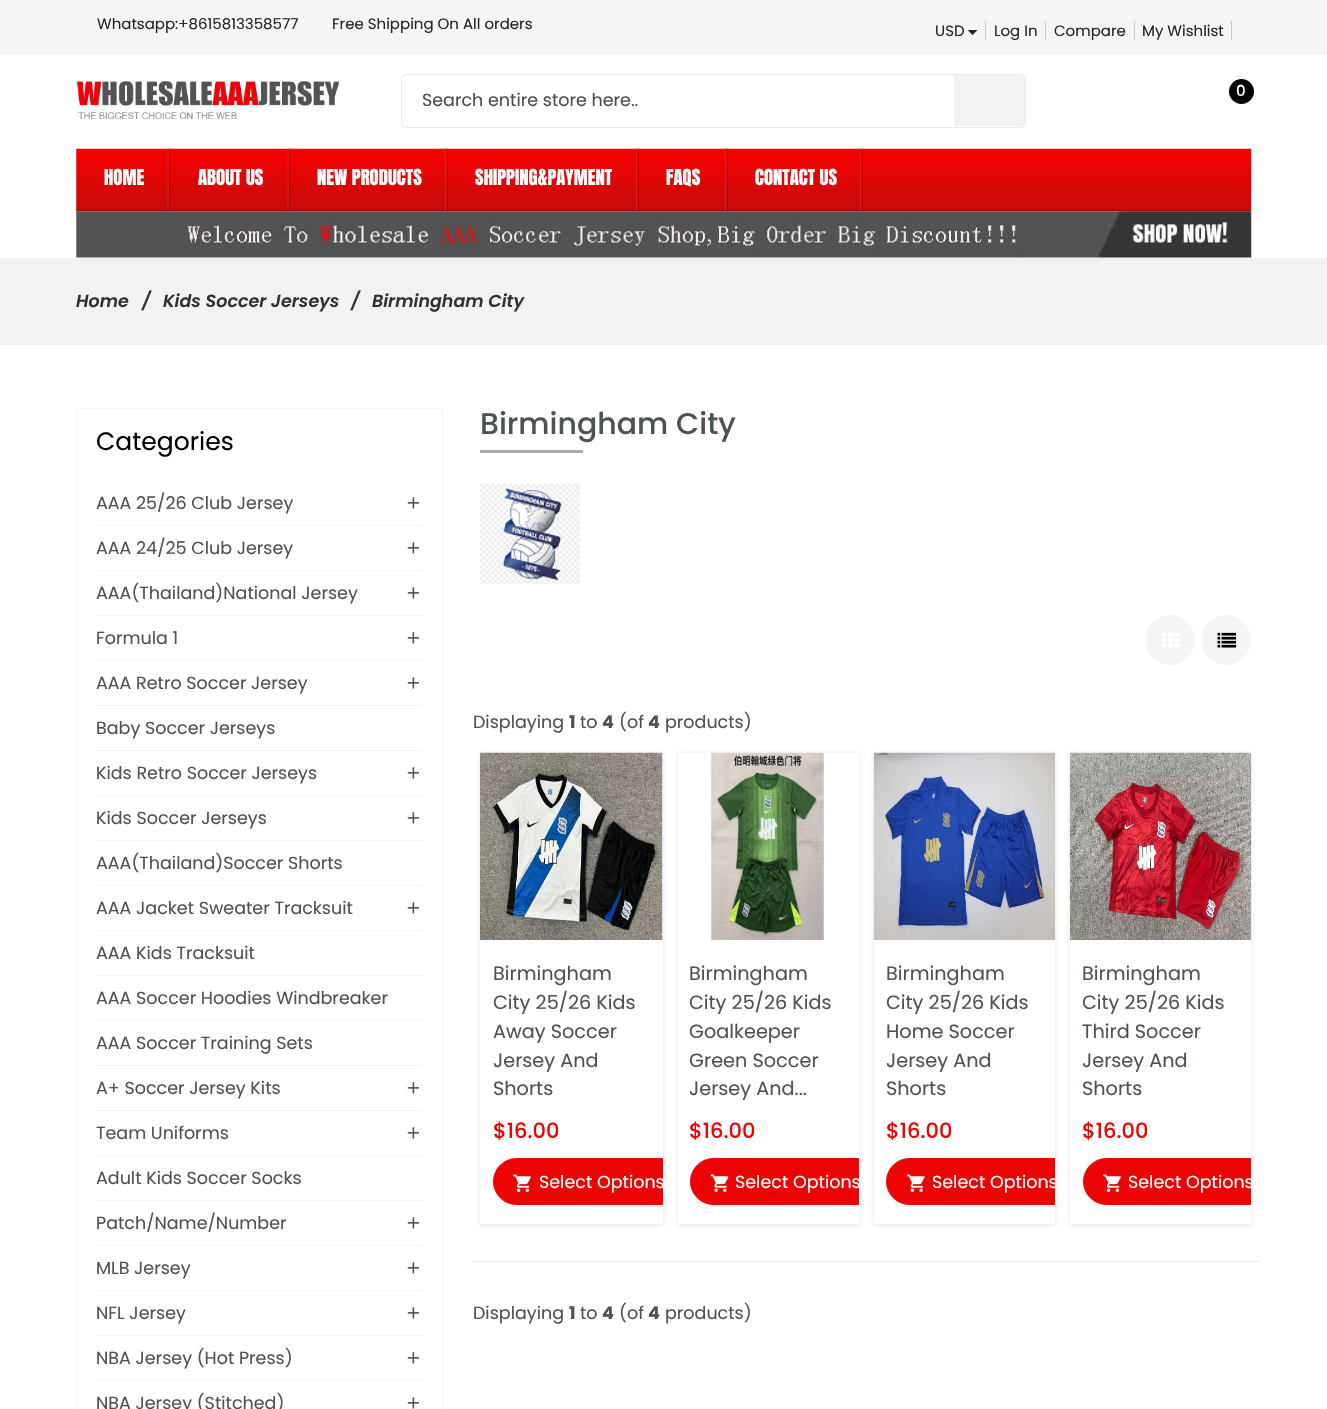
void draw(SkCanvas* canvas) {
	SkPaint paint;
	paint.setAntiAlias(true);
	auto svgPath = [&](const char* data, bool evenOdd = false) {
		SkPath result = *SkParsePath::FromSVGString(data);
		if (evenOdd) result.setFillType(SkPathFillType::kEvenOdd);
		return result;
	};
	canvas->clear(0xffffffff);
	paint.setColor(0xfff5f5f5);
	canvas->drawRect(SkRect::MakeXYWH(0, 0, 1327, 55), paint);
	SkFont f1(fontMgr->matchFamilyStyle("Poppins", SkFontStyle::Normal()), 15);
	f1.setSubpixel(true);
	paint.setColor(0xff252525);
	canvas->drawString("Whatsapp:+8615813358577", 97, 29, f1, paint);
	canvas->drawString("Free Shipping On All orders", 332, 29, f1, paint);
	paint.setColor(0xffcccccc);
	canvas->drawRect(SkRect::MakeXYWH(985, 21, 1, 19), paint);
	paint.setColor(0xff252525);
	canvas->drawString("USD", 935, 36, f1, paint);
	canvas->drawPath(svgPath("M967.5 30H977.5L972.5 35Z"), paint);
	paint.setColor(0xffcccccc);
	canvas->drawRect(SkRect::MakeXYWH(1045, 21, 1, 19), paint);
	paint.setColor(0xff252525);
	canvas->drawString("Log In", 994, 36, f1, paint);
	paint.setColor(0xffcccccc);
	canvas->drawRect(SkRect::MakeXYWH(1134, 21, 1, 19), paint);
	paint.setColor(0xff252525);
	canvas->drawString("Compare", 1054, 36, f1, paint);
	paint.setColor(0xffcccccc);
	canvas->drawRect(SkRect::MakeXYWH(1231, 21, 1, 19), paint);
	paint.setColor(0xff252525);
	canvas->drawString("My Wishlist", 1142, 36, f1, paint);
	canvas->drawImageRect(SkImages::DeferredFromEncodedData(SkData::MakeFromFileName("img1.png")), SkRect::MakeXYWH(77, 81, 263, 39), SkSamplingOptions());
	paint.setColor(0xff000000);
	canvas->drawCircle(1241.5, 91.5, 12.5, paint);
	SkFont f2(fontMgr->matchFamilyStyle("Poppins", SkFontStyle(500, SkFontStyle::kNormal_Width, SkFontStyle::kUpright_Slant)), 15);
	f2.setSubpixel(true);
	paint.setColor(0xffffffff);
	canvas->drawString("0", 1236, 96, f2, paint);
	paint.setStroke(true);
	paint.setStrokeWidth(1);
	paint.setColor(0xffe8e8e8);
	canvas->drawRoundRect(SkRect::MakeXYWH(401.5, 74.5, 624, 53), 5.5, 5.5, paint);
	SkFont f3(fontMgr->matchFamilyStyle("Poppins", SkFontStyle::Normal()), 17.5);
	f3.setSubpixel(true);
	paint.setStroke(false);
	paint.setColor(0xff4d4d4d);
	canvas->drawString("Search entire store here..", 422, 106, f3, paint);
	paint.setColor(0xfff2f2f2);
	canvas->drawRect(SkRect::MakeXYWH(954, 75, 71, 51), paint);
	canvas->drawImageRect(SkImages::DeferredFromEncodedData(SkData::MakeFromFileName("img2.png")), SkRect::MakeXYWH(76, 148, 1176, 64), SkSamplingOptions());
	canvas->drawImageRect(SkImages::DeferredFromEncodedData(SkData::MakeFromFileName("img3.png")), SkRect::MakeXYWH(167, 148, 3, 64), SkSamplingOptions());
	SkFont f4(fontMgr->matchFamilyStyle("Anton", SkFontStyle::Normal()), 18.75);
	f4.setSubpixel(true);
	paint.setColor(0xffffffff);
	canvas->drawString("HOME", 104, 185, f4, paint);
	canvas->drawImageRect(SkImages::DeferredFromEncodedData(SkData::MakeFromFileName("img3.png")), SkRect::MakeXYWH(287, 148, 3, 64), SkSamplingOptions());
	canvas->drawString("ABOUT US", 198, 185, f4, paint);
	canvas->drawImageRect(SkImages::DeferredFromEncodedData(SkData::MakeFromFileName("img4.png")), SkRect::MakeXYWH(445, 148, 3, 64), SkSamplingOptions());
	canvas->drawString("NEW PRODUCTS", 317, 185, f4, paint);
	canvas->drawImageRect(SkImages::DeferredFromEncodedData(SkData::MakeFromFileName("img5.png")), SkRect::MakeXYWH(636, 148, 3, 64), SkSamplingOptions());
	canvas->drawString("SHIPPING&PAYMENT", 475, 185, f4, paint);
	canvas->drawImageRect(SkImages::DeferredFromEncodedData(SkData::MakeFromFileName("img4.png")), SkRect::MakeXYWH(725, 148, 3, 64), SkSamplingOptions());
	canvas->drawString("FAQS", 666, 185, f4, paint);
	canvas->drawImageRect(SkImages::DeferredFromEncodedData(SkData::MakeFromFileName("img4.png")), SkRect::MakeXYWH(860, 148, 3, 64), SkSamplingOptions());
	canvas->drawString("CONTACT US", 755, 185, f4, paint);
	canvas->drawImageRect(SkImages::DeferredFromEncodedData(SkData::MakeFromFileName("img6.png")), SkRect::MakeXYWH(76, 211, 1176, 47), SkSamplingOptions());
	paint.setColor(0xfff2f2f2);
	canvas->drawRect(SkRect::MakeXYWH(0, 258, 1327, 87), paint);
	SkFont f5(fontMgr->matchFamilyStyle("Poppins", SkFontStyle(600, SkFontStyle::kNormal_Width, SkFontStyle::kItalic_Slant)), 17.5);
	f5.setSubpixel(true);
	paint.setColor(0xff333333);
	canvas->drawString("Home", 76, 307, f5, paint);
	canvas->drawString("/", 142, 307, f5, paint);
	canvas->drawString("Kids Soccer Jerseys", 163, 307, f5, paint);
	canvas->drawString("/", 351, 307, f5, paint);
	canvas->drawString("Birmingham City", 372, 307, f5, paint);
	paint.setStroke(true);
	paint.setColor(0xfff5f5f5);
	canvas->drawRect(SkRect::MakeXYWH(76.5, 408.5, 366, 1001), paint);
	SkFont f6(fontMgr->matchFamilyStyle("Poppins", SkFontStyle::Normal()), 25);
	f6.setSubpixel(true);
	paint.setStroke(false);
	paint.setColor(0xff000000);
	canvas->drawString("Categories", 96, 450, f6, paint);
	paint.setColor(0xfff5f5f5);
	canvas->drawRect(SkRect::MakeXYWH(96, 525, 327, 1), paint);
	paint.setColor(0xff4d5255);
	canvas->drawString("AAA 25/26 Club Jersey", 96, 509, f3, paint);
	canvas->drawImageRect(SkImages::DeferredFromEncodedData(SkData::MakeFromFileName("img7.png")), SkRect::MakeXYWH(407, 497, 12, 12), SkSamplingOptions());
	paint.setColor(0xfff5f5f5);
	canvas->drawRect(SkRect::MakeXYWH(96, 570, 327, 1), paint);
	paint.setColor(0xff4d5255);
	canvas->drawString("AAA 24/25 Club Jersey", 96, 554, f3, paint);
	canvas->drawImageRect(SkImages::DeferredFromEncodedData(SkData::MakeFromFileName("img7.png")), SkRect::MakeXYWH(407, 542, 12, 12), SkSamplingOptions());
	paint.setColor(0xfff5f5f5);
	canvas->drawRect(SkRect::MakeXYWH(96, 615, 327, 1), paint);
	paint.setColor(0xff4d5255);
	canvas->drawString("AAA(Thailand)National Jersey", 96, 599, f3, paint);
	canvas->drawImageRect(SkImages::DeferredFromEncodedData(SkData::MakeFromFileName("img7.png")), SkRect::MakeXYWH(407, 587, 12, 12), SkSamplingOptions());
	paint.setColor(0xfff5f5f5);
	canvas->drawRect(SkRect::MakeXYWH(96, 660, 327, 1), paint);
	paint.setColor(0xff4d5255);
	canvas->drawString("Formula 1", 96, 644, f3, paint);
	canvas->drawImageRect(SkImages::DeferredFromEncodedData(SkData::MakeFromFileName("img7.png")), SkRect::MakeXYWH(407, 632, 12, 12), SkSamplingOptions());
	paint.setColor(0xfff5f5f5);
	canvas->drawRect(SkRect::MakeXYWH(96, 705, 327, 1), paint);
	paint.setColor(0xff4d5255);
	canvas->drawString("AAA Retro Soccer Jersey", 96, 689, f3, paint);
	canvas->drawImageRect(SkImages::DeferredFromEncodedData(SkData::MakeFromFileName("img7.png")), SkRect::MakeXYWH(407, 677, 12, 12), SkSamplingOptions());
	paint.setColor(0xfff5f5f5);
	canvas->drawRect(SkRect::MakeXYWH(96, 750, 327, 1), paint);
	paint.setColor(0xff4d5255);
	canvas->drawString("Baby Soccer Jerseys", 96, 734, f3, paint);
	paint.setColor(0xfff5f5f5);
	canvas->drawRect(SkRect::MakeXYWH(96, 795, 327, 1), paint);
	paint.setColor(0xff4d5255);
	canvas->drawString("Kids Retro Soccer Jerseys", 96, 779, f3, paint);
	canvas->drawImageRect(SkImages::DeferredFromEncodedData(SkData::MakeFromFileName("img7.png")), SkRect::MakeXYWH(407, 767, 12, 12), SkSamplingOptions());
	paint.setColor(0xfff5f5f5);
	canvas->drawRect(SkRect::MakeXYWH(96, 840, 327, 1), paint);
	paint.setColor(0xff4d5255);
	canvas->drawString("Kids Soccer Jerseys", 96, 824, f3, paint);
	canvas->drawImageRect(SkImages::DeferredFromEncodedData(SkData::MakeFromFileName("img7.png")), SkRect::MakeXYWH(407, 812, 12, 12), SkSamplingOptions());
	paint.setColor(0xfff5f5f5);
	canvas->drawRect(SkRect::MakeXYWH(96, 885, 327, 1), paint);
	paint.setColor(0xff4d5255);
	canvas->drawString("AAA(Thailand)Soccer Shorts", 96, 869, f3, paint);
	paint.setColor(0xfff5f5f5);
	canvas->drawRect(SkRect::MakeXYWH(96, 930, 327, 1), paint);
	paint.setColor(0xff4d5255);
	canvas->drawString("AAA Jacket Sweater Tracksuit", 96, 914, f3, paint);
	canvas->drawImageRect(SkImages::DeferredFromEncodedData(SkData::MakeFromFileName("img7.png")), SkRect::MakeXYWH(407, 902, 12, 12), SkSamplingOptions());
	paint.setColor(0xfff5f5f5);
	canvas->drawRect(SkRect::MakeXYWH(96, 975, 327, 1), paint);
	paint.setColor(0xff4d5255);
	canvas->drawString("AAA Kids Tracksuit", 96, 959, f3, paint);
	paint.setColor(0xfff5f5f5);
	canvas->drawRect(SkRect::MakeXYWH(96, 1020, 327, 1), paint);
	paint.setColor(0xff4d5255);
	canvas->drawString("AAA Soccer Hoodies Windbreaker", 96, 1004, f3, paint);
	paint.setColor(0xfff5f5f5);
	canvas->drawRect(SkRect::MakeXYWH(96, 1065, 327, 1), paint);
	paint.setColor(0xff4d5255);
	canvas->drawString("AAA Soccer Training Sets", 96, 1049, f3, paint);
	paint.setColor(0xfff5f5f5);
	canvas->drawRect(SkRect::MakeXYWH(96, 1110, 327, 1), paint);
	paint.setColor(0xff4d5255);
	canvas->drawString("A+ Soccer Jersey Kits", 96, 1094, f3, paint);
	canvas->drawImageRect(SkImages::DeferredFromEncodedData(SkData::MakeFromFileName("img7.png")), SkRect::MakeXYWH(407, 1082, 12, 12), SkSamplingOptions());
	paint.setColor(0xfff5f5f5);
	canvas->drawRect(SkRect::MakeXYWH(96, 1155, 327, 1), paint);
	paint.setColor(0xff4d5255);
	canvas->drawString("Team Uniforms", 96, 1139, f3, paint);
	canvas->drawImageRect(SkImages::DeferredFromEncodedData(SkData::MakeFromFileName("img7.png")), SkRect::MakeXYWH(407, 1127, 12, 12), SkSamplingOptions());
	paint.setColor(0xfff5f5f5);
	canvas->drawRect(SkRect::MakeXYWH(96, 1200, 327, 1), paint);
	paint.setColor(0xff4d5255);
	canvas->drawString("Adult Kids Soccer Socks", 96, 1184, f3, paint);
	paint.setColor(0xfff5f5f5);
	canvas->drawRect(SkRect::MakeXYWH(96, 1245, 327, 1), paint);
	paint.setColor(0xff4d5255);
	canvas->drawString("Patch/Name/Number", 96, 1229, f3, paint);
	canvas->drawImageRect(SkImages::DeferredFromEncodedData(SkData::MakeFromFileName("img7.png")), SkRect::MakeXYWH(407, 1217, 12, 12), SkSamplingOptions());
	paint.setColor(0xfff5f5f5);
	canvas->drawRect(SkRect::MakeXYWH(96, 1290, 327, 1), paint);
	paint.setColor(0xff4d5255);
	canvas->drawString("MLB Jersey", 96, 1274, f3, paint);
	canvas->drawImageRect(SkImages::DeferredFromEncodedData(SkData::MakeFromFileName("img7.png")), SkRect::MakeXYWH(407, 1262, 12, 12), SkSamplingOptions());
	paint.setColor(0xfff5f5f5);
	canvas->drawRect(SkRect::MakeXYWH(96, 1335, 327, 1), paint);
	paint.setColor(0xff4d5255);
	canvas->drawString("NFL Jersey", 96, 1319, f3, paint);
	canvas->drawImageRect(SkImages::DeferredFromEncodedData(SkData::MakeFromFileName("img7.png")), SkRect::MakeXYWH(407, 1307, 12, 12), SkSamplingOptions());
	paint.setColor(0xfff5f5f5);
	canvas->drawRect(SkRect::MakeXYWH(96, 1380, 327, 1), paint);
	paint.setColor(0xff4d5255);
	canvas->drawString("NBA Jersey (Hot Press)", 96, 1364, f3, paint);
	canvas->drawImageRect(SkImages::DeferredFromEncodedData(SkData::MakeFromFileName("img7.png")), SkRect::MakeXYWH(407, 1352, 12, 12), SkSamplingOptions());
	canvas->drawString("NBA Jersey (Stitched)", 96, 1409, f3, paint);
	canvas->drawImageRect(SkImages::DeferredFromEncodedData(SkData::MakeFromFileName("img7.png")), SkRect::MakeXYWH(407, 1397, 12, 12), SkSamplingOptions());
	SkFont f7(fontMgr->matchFamilyStyle("Poppins", SkFontStyle(500, SkFontStyle::kNormal_Width, SkFontStyle::kUpright_Slant)), 30);
	f7.setSubpixel(true);
	canvas->drawString("Birmingham City", 480, 434, f7, paint);
	paint.setColor(0xffaaaaaa);
	canvas->drawRect(SkRect::MakeXYWH(480, 450, 103, 3), paint);
	canvas->drawImageRect(SkImages::DeferredFromEncodedData(SkData::MakeFromFileName("img8.png")), SkRect::MakeXYWH(480, 483, 100, 101), SkSamplingOptions());
	paint.setColor(0xfff5f5f5);
	canvas->drawCircle(1170, 640, 25, paint);
	canvas->drawImageRect(SkImages::DeferredFromEncodedData(SkData::MakeFromFileName("img9.png")), SkRect::MakeXYWH(1161, 633, 19, 15), SkSamplingOptions());
	canvas->drawCircle(1226, 640, 25, paint);
	canvas->drawImageRect(SkImages::DeferredFromEncodedData(SkData::MakeFromFileName("img10.png")), SkRect::MakeXYWH(1217, 632, 20, 16), SkSamplingOptions());
	paint.setColor(0xff4d5255);
	canvas->drawString("Displaying", 473, 728, f3, paint);
	SkFont f8(fontMgr->matchFamilyStyle("Poppins", SkFontStyle::Bold()), 17.5);
	f8.setSubpixel(true);
	canvas->drawString("1", 569, 728, f8, paint);
	canvas->drawString("to", 580, 728, f3, paint);
	canvas->drawString("4", 602, 728, f8, paint);
	canvas->drawString("(of", 619, 728, f3, paint);
	canvas->drawString("4", 648, 728, f8, paint);
	canvas->drawString("products)", 665, 728, f3, paint);
	canvas->save();
	canvas->clipPath(svgPath("M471 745H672V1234H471ZM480 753H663V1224H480Z", true), true);
	paint.setColor(0x1a000000);
	paint.setMaskFilter(SkMaskFilter::MakeBlur(kNormal_SkBlurStyle, 2.5));
	canvas->drawRect(SkRect::MakeXYWH(480, 754, 183, 471), paint);
	paint.setMaskFilter(nullptr);
	canvas->restore();
	canvas->drawImageRect(SkImages::DeferredFromEncodedData(SkData::MakeFromFileName("img11.png")), SkRect::MakeXYWH(480, 752, 183, 188), SkSamplingOptions());
	SkFont f9(fontMgr->matchFamilyStyle("Poppins", SkFontStyle::Normal()), 19.25);
	f9.setSubpixel(true);
	paint.setColor(0xff4d5255);
	canvas->drawString("Birmingham", 493, 980, f9, paint);
	canvas->drawString("City 25/26 Kids", 493, 1009, f9, paint);
	canvas->drawString("Away Soccer", 493, 1038, f9, paint);
	canvas->drawString("Jersey And", 493, 1067, f9, paint);
	canvas->drawString("Shorts", 493, 1095, f9, paint);
	SkFont f10(fontMgr->matchFamilyStyle("Poppins", SkFontStyle(500, SkFontStyle::kNormal_Width, SkFontStyle::kUpright_Slant)), 21);
	f10.setSubpixel(true);
	paint.setColor(0xffec0404);
	canvas->drawString("$16.00", 493, 1138, f10, paint);
	canvas->save();
	canvas->clipRect(SkRect::MakeXYWH(480, 753, 183, 471));
	canvas->drawRoundRect(SkRect::MakeXYWH(493.5, 1158.5, 191, 46), 23, 23, paint);
	paint.setStroke(true);
	canvas->drawRoundRect(SkRect::MakeXYWH(493.5, 1158.5, 191, 46), 23, 23, paint);
	canvas->restore();
	canvas->drawImageRect(SkImages::DeferredFromEncodedData(SkData::MakeFromFileName("img12.png")), SkRect::MakeXYWH(513, 1174, 18, 18), SkSamplingOptions());
	canvas->save();
	canvas->clipRect(SkRect::MakeXYWH(480, 753, 183, 471));
	paint.setStroke(false);
	paint.setColor(0xffffffff);
	canvas->drawString("Select Options", 539, 1188, f3, paint);
	canvas->restore();
	canvas->save();
	canvas->clipPath(svgPath("M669 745H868V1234H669ZM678 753H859V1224H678Z", true), true);
	paint.setColor(0x1a000000);
	paint.setMaskFilter(SkMaskFilter::MakeBlur(kNormal_SkBlurStyle, 2.5));
	canvas->drawRect(SkRect::MakeXYWH(678, 754, 181, 471), paint);
	paint.setMaskFilter(nullptr);
	canvas->restore();
	canvas->drawImageRect(SkImages::DeferredFromEncodedData(SkData::MakeFromFileName("img13.png")), SkRect::MakeXYWH(711, 752, 113, 188), SkSamplingOptions());
	paint.setColor(0xff4d5255);
	canvas->drawString("Birmingham", 689, 980, f9, paint);
	canvas->drawString("City 25/26 Kids", 689, 1009, f9, paint);
	canvas->drawString("Goalkeeper", 689, 1038, f9, paint);
	canvas->drawString("Green Soccer", 689, 1067, f9, paint);
	canvas->drawString("Jersey And...", 689, 1095, f9, paint);
	paint.setColor(0xffec0404);
	canvas->drawString("$16.00", 689, 1138, f10, paint);
	canvas->save();
	canvas->clipRect(SkRect::MakeXYWH(678, 753, 181, 471));
	canvas->drawRoundRect(SkRect::MakeXYWH(690.5, 1158.5, 190, 46), 23, 23, paint);
	paint.setStroke(true);
	canvas->drawRoundRect(SkRect::MakeXYWH(690.5, 1158.5, 190, 46), 23, 23, paint);
	canvas->restore();
	canvas->drawImageRect(SkImages::DeferredFromEncodedData(SkData::MakeFromFileName("img14.png")), SkRect::MakeXYWH(710, 1174, 19, 18), SkSamplingOptions());
	canvas->save();
	canvas->clipRect(SkRect::MakeXYWH(678, 753, 181, 471));
	paint.setStroke(false);
	paint.setColor(0xffffffff);
	canvas->drawString("Select Options", 735, 1188, f3, paint);
	canvas->restore();
	canvas->save();
	canvas->clipPath(svgPath("M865 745H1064V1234H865ZM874 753H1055V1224H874Z", true), true);
	paint.setColor(0x1a000000);
	paint.setMaskFilter(SkMaskFilter::MakeBlur(kNormal_SkBlurStyle, 2.5));
	canvas->drawRect(SkRect::MakeXYWH(874, 754, 181, 471), paint);
	paint.setMaskFilter(nullptr);
	canvas->restore();
	canvas->drawImageRect(SkImages::DeferredFromEncodedData(SkData::MakeFromFileName("img15.png")), SkRect::MakeXYWH(873, 752, 182, 188), SkSamplingOptions());
	paint.setColor(0xff4d5255);
	canvas->drawString("Birmingham", 886, 980, f9, paint);
	canvas->drawString("City 25/26 Kids", 886, 1009, f9, paint);
	canvas->drawString("Home Soccer", 886, 1038, f9, paint);
	canvas->drawString("Jersey And", 886, 1067, f9, paint);
	canvas->drawString("Shorts", 886, 1095, f9, paint);
	paint.setColor(0xffec0404);
	canvas->drawString("$16.00", 886, 1138, f10, paint);
	canvas->save();
	canvas->clipRect(SkRect::MakeXYWH(874, 753, 181, 471));
	canvas->drawRoundRect(SkRect::MakeXYWH(886.5, 1158.5, 191, 46), 23, 23, paint);
	paint.setStroke(true);
	canvas->drawRoundRect(SkRect::MakeXYWH(886.5, 1158.5, 191, 46), 23, 23, paint);
	canvas->restore();
	canvas->drawImageRect(SkImages::DeferredFromEncodedData(SkData::MakeFromFileName("img16.png")), SkRect::MakeXYWH(907, 1174, 18, 18), SkSamplingOptions());
	canvas->save();
	canvas->clipRect(SkRect::MakeXYWH(874, 753, 181, 471));
	paint.setStroke(false);
	paint.setColor(0xffffffff);
	canvas->drawString("Select Options", 932, 1188, f3, paint);
	canvas->restore();
	canvas->save();
	canvas->clipPath(svgPath("M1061 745H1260V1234H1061ZM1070 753H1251V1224H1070Z", true), true);
	paint.setColor(0x1a000000);
	paint.setMaskFilter(SkMaskFilter::MakeBlur(kNormal_SkBlurStyle, 2.5));
	canvas->drawRect(SkRect::MakeXYWH(1070, 754, 181, 471), paint);
	paint.setMaskFilter(nullptr);
	canvas->restore();
	canvas->drawImageRect(SkImages::DeferredFromEncodedData(SkData::MakeFromFileName("img17.png")), SkRect::MakeXYWH(1070, 752, 182, 188), SkSamplingOptions());
	paint.setColor(0xff4d5255);
	canvas->drawString("Birmingham", 1082, 980, f9, paint);
	canvas->drawString("City 25/26 Kids", 1082, 1009, f9, paint);
	canvas->drawString("Third Soccer", 1082, 1038, f9, paint);
	canvas->drawString("Jersey And", 1082, 1067, f9, paint);
	canvas->drawString("Shorts", 1082, 1095, f9, paint);
	paint.setColor(0xffec0404);
	canvas->drawString("$16.00", 1082, 1138, f10, paint);
	canvas->save();
	canvas->clipRect(SkRect::MakeXYWH(1070, 753, 181, 471));
	canvas->drawRoundRect(SkRect::MakeXYWH(1083.5, 1158.5, 190, 46), 23, 23, paint);
	paint.setStroke(true);
	canvas->drawRoundRect(SkRect::MakeXYWH(1083.5, 1158.5, 190, 46), 23, 23, paint);
	canvas->restore();
	canvas->drawImageRect(SkImages::DeferredFromEncodedData(SkData::MakeFromFileName("img12.png")), SkRect::MakeXYWH(1103, 1174, 18, 18), SkSamplingOptions());
	canvas->save();
	canvas->clipRect(SkRect::MakeXYWH(1070, 753, 181, 471));
	paint.setStroke(false);
	paint.setColor(0xffffffff);
	canvas->drawString("Select Options", 1128, 1188, f3, paint);
	canvas->restore();
	paint.setColor(0xffe5e5e5);
	canvas->drawRect(SkRect::MakeXYWH(473, 1261, 786, 1), paint);
	paint.setColor(0xff4d5255);
	canvas->drawString("Displaying", 473, 1319, f3, paint);
	canvas->drawString("1", 569, 1319, f8, paint);
	canvas->drawString("to", 580, 1319, f3, paint);
	canvas->drawString("4", 602, 1319, f8, paint);
	canvas->drawString("(of", 619, 1319, f3, paint);
	canvas->drawString("4", 648, 1319, f8, paint);
	canvas->drawString("products)", 665, 1319, f3, paint);
}
